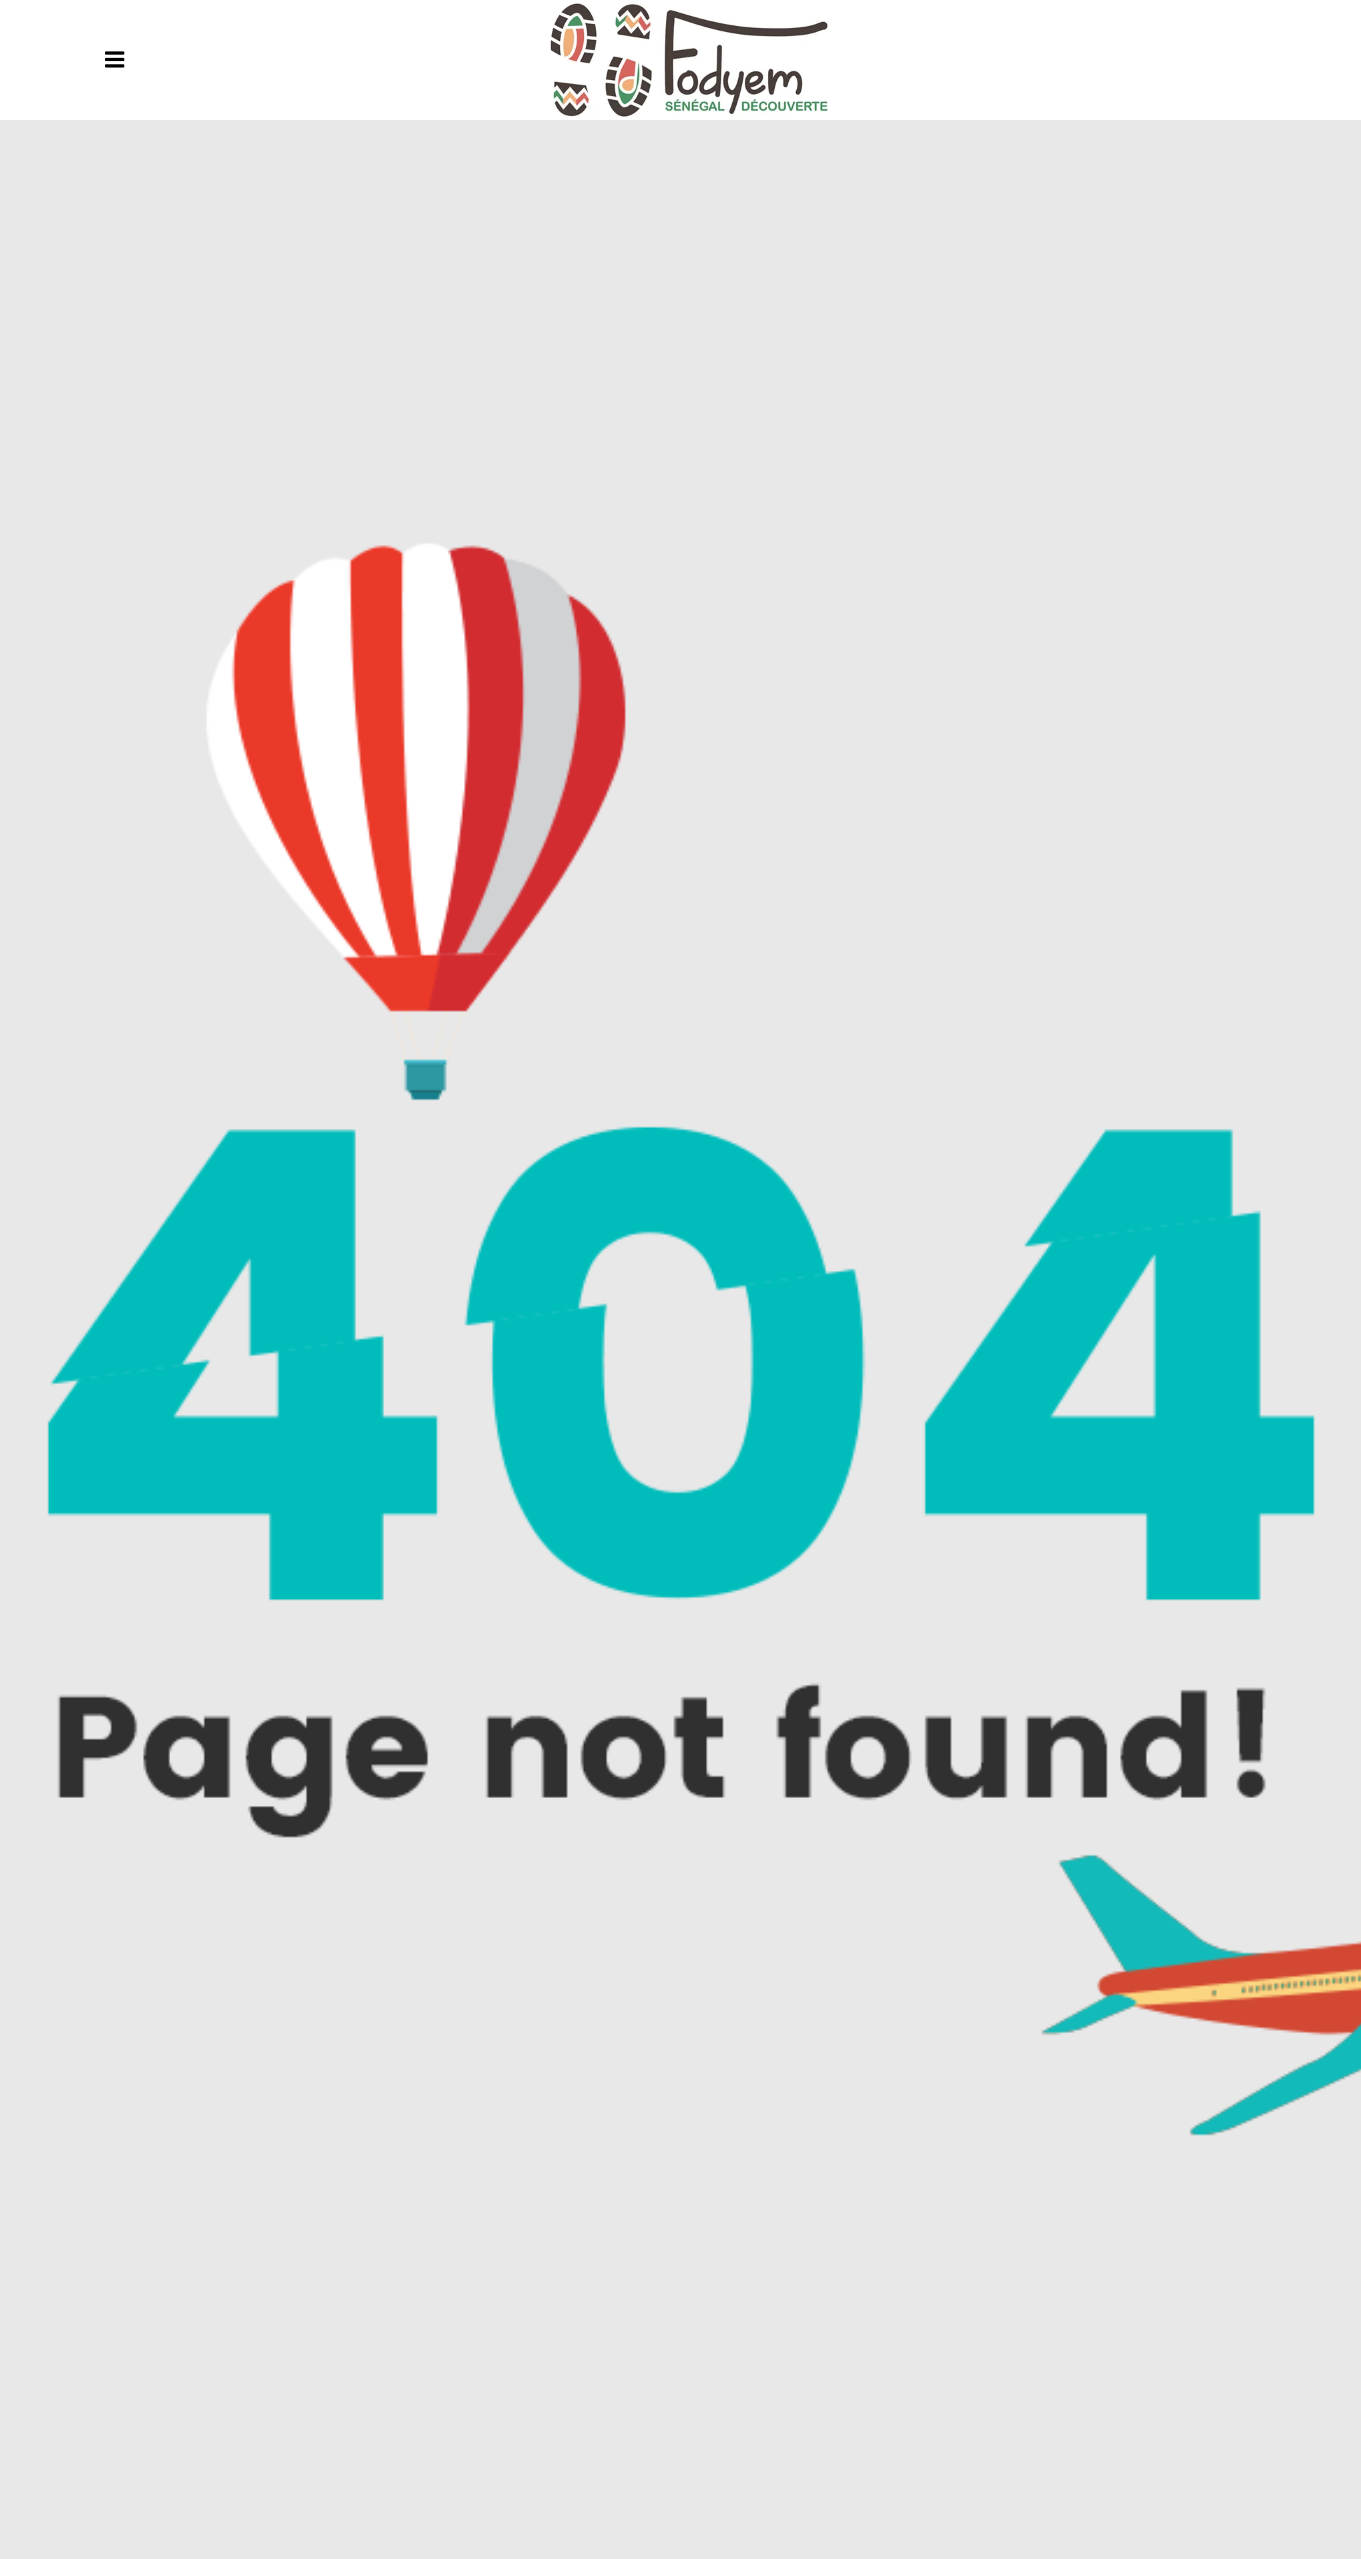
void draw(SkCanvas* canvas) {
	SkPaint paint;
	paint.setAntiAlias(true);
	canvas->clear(0xffffffff);
	canvas->drawImageRect(SkImages::DeferredFromEncodedData(SkData::MakeFromFileName("img1.png")), SkRect::MakeXYWH(105, 51, 20, 17), SkSamplingOptions());
	canvas->drawImageRect(SkImages::DeferredFromEncodedData(SkData::MakeFromFileName("img2.png")), SkRect::MakeXYWH(550, 0, 278, 118), SkSamplingOptions());
	canvas->drawImageRect(SkImages::DeferredFromEncodedData(SkData::MakeFromFileName("img3.png")), SkRect::MakeXYWH(0, 120, 1361, 2439), SkSamplingOptions());
}
